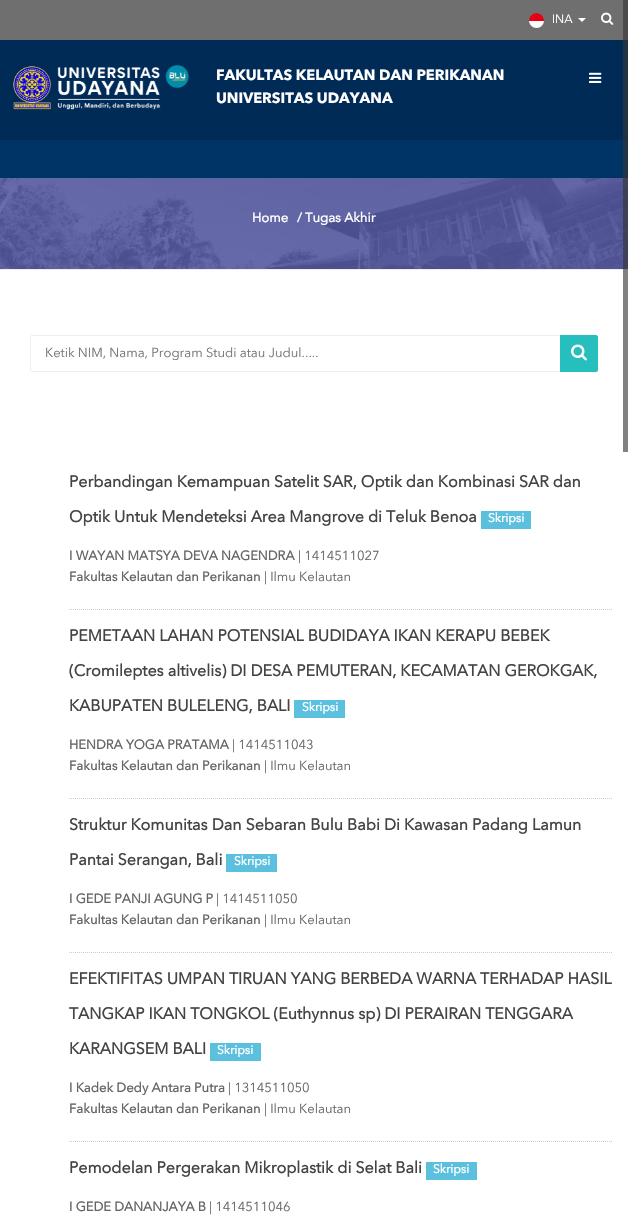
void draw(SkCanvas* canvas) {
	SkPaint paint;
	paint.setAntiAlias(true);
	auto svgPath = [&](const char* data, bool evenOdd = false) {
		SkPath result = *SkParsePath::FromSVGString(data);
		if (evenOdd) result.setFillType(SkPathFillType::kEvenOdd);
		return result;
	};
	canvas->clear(0xffffffff);
	paint.setColor(0xff6f6f6f);
	canvas->drawRect(SkRect::MakeXYWH(0, 0, 628, 40), paint);
	canvas->save();
	canvas->clipPath(svgPath("M536.5 13C540.5 13 544 16.5 544 20.5C544 24.5 540.5 28 536.5 28C532.5 28 529 24.5 529 20.5C529 16.5 532.5 13 536.5 13Z"), true);
	paint.setColor(0xffe70011);
	canvas->drawPath(svgPath("M536.5 13C540.5 13 544 16.5 544 20.5V21H529V20.5C529 16.5 532.5 13 536.5 13Z"), paint);
	canvas->restore();
	SkFont f1(fontMgr->matchFamilyStyle("Avenir Next", SkFontStyle::Normal()), 12);
	f1.setSubpixel(true);
	paint.setColor(0xffffffff);
	canvas->drawString("INA", 552, 23, f1, paint);
	canvas->drawPath(svgPath("M578 18H586L582 22Z"), paint);
	canvas->save();
	canvas->clipPath(svgPath("M536.5 13C540.5 13 544 16.5 544 20.5C544 24.5 540.5 28 536.5 28C532.5 28 529 24.5 529 20.5C529 16.5 532.5 13 536.5 13Z"), true);
	canvas->drawRect(SkRect::MakeXYWH(529, 21, 15, 7), paint);
	canvas->restore();
	canvas->drawImageRect(SkImages::DeferredFromEncodedData(SkData::MakeFromFileName("img1.png")), SkRect::MakeXYWH(601, 12, 13, 13), SkSamplingOptions());
	paint.setColor(0xff002b57);
	canvas->drawRect(SkRect::MakeXYWH(0, 40, 628, 100), paint);
	canvas->drawImageRect(SkImages::DeferredFromEncodedData(SkData::MakeFromFileName("img2.png")), SkRect::MakeXYWH(13, 65, 176, 45), SkSamplingOptions());
	SkFont f2(fontMgr->matchFamilyStyle("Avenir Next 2", SkFontStyle::Bold()), 14.7);
	f2.setSubpixel(true);
	paint.setColor(0xffffffff);
	canvas->drawString("FAKULTAS KELAUTAN DAN PERIKANAN", 216, 80, f2, paint);
	canvas->drawString("UNIVERSITAS UDAYANA", 216, 103, f2, paint);
	canvas->drawImageRect(SkImages::DeferredFromEncodedData(SkData::MakeFromFileName("img3.png")), SkRect::MakeXYWH(589, 72, 13, 11), SkSamplingOptions());
	paint.setColor(0xff003366);
	canvas->drawRect(SkRect::MakeXYWH(0, 140, 628, 38), paint);
	canvas->drawImageRect(SkImages::DeferredFromEncodedData(SkData::MakeFromFileName("img4.png")), SkRect::MakeXYWH(0, 178, 628, 91), SkSamplingOptions());
	paint.setColor(0xffeeeeee);
	canvas->drawRect(SkRect::MakeXYWH(0, 269, 628, 1), paint);
	SkFont f3(fontMgr->matchFamilyStyle("Avenir Next", SkFontStyle::Bold()), 13);
	f3.setSubpixel(true);
	paint.setColor(0xffffffff);
	canvas->drawString("Home", 252, 222, f3, paint);
	canvas->drawString("/", 297, 222, f3, paint);
	canvas->drawString("Tugas Akhir", 305, 222, f3, paint);
	paint.setColor(0xffeeeeee);
	canvas->drawRect(SkRect::MakeXYWH(31, 335, 529, 1), paint);
	canvas->drawRect(SkRect::MakeXYWH(31, 371, 529, 1), paint);
	canvas->drawRect(SkRect::MakeXYWH(30, 336, 1, 35), paint);
	SkFont f4(fontMgr->matchFamilyStyle("Avenir Next", SkFontStyle::Normal()), 13);
	f4.setSubpixel(true);
	paint.setColor(0xff757575);
	canvas->drawString("Ketik NIM, Nama, Program Studi atau Judul.....", 45, 357, f4, paint);
	paint.setColor(0xff27bebe);
	canvas->drawPath(svgPath("M560 335H596C597 335 598 336 598 337V370C598 371 597 372 596 372H560Z"), paint);
	canvas->drawImageRect(SkImages::DeferredFromEncodedData(SkData::MakeFromFileName("img5.png")), SkRect::MakeXYWH(571, 344, 16, 17), SkSamplingOptions());
	paint.setStroke(true);
	paint.setStrokeWidth(1);
	paint.setColor(0xffcccccc);
	paint.setPathEffect(SkDashPathEffect::Make({{1, 1}}, 0));
	canvas->drawPath(svgPath("M69 609.5H613"), paint);
	paint.setPathEffect(nullptr);
	SkFont f5(fontMgr->matchFamilyStyle("Avenir Next", SkFontStyle::Bold()), 16);
	f5.setSubpixel(true);
	paint.setStroke(false);
	paint.setColor(0xff444444);
	canvas->drawString("Perbandingan Kemampuan Satelit SAR, Optik dan Kombinasi SAR dan", 69, 487, f5, paint);
	canvas->drawString("Optik Untuk Mendeteksi Area Mangrove di Teluk Benoa", 69, 522, f5, paint);
	paint.setColor(0xff5bc0de);
	canvas->drawRect(SkRect::MakeXYWH(481, 511, 50, 18), paint);
	SkFont f6(fontMgr->matchFamilyStyle("Avenir Next", SkFontStyle::Bold()), 12);
	f6.setSubpixel(true);
	paint.setColor(0xffffffff);
	canvas->drawString("Skripsi", 488, 522, f6, paint);
	paint.setColor(0xff666666);
	canvas->drawString("I WAYAN MATSYA DEVA NAGENDRA", 69, 560, f3, paint);
	canvas->drawString("| 1414511027", 298, 560, f4, paint);
	canvas->drawString("Fakultas Kelautan dan Perikanan", 69, 581, f3, paint);
	canvas->drawString("| Ilmu Kelautan", 264, 581, f4, paint);
	paint.setStroke(true);
	paint.setColor(0xffcccccc);
	paint.setPathEffect(SkDashPathEffect::Make({{1, 1}}, 0));
	canvas->drawPath(svgPath("M69 798.5H613"), paint);
	paint.setPathEffect(nullptr);
	paint.setStroke(false);
	paint.setColor(0xff444444);
	canvas->drawString("PEMETAAN LAHAN POTENSIAL BUDIDAYA IKAN KERAPU BEBEK", 69, 641, f5, paint);
	canvas->drawString("(Cromileptes altivelis) DI DESA PEMUTERAN, KECAMATAN GEROKGAK,", 69, 676, f5, paint);
	canvas->drawString("KABUPATEN BULELENG, BALI", 69, 711, f5, paint);
	paint.setColor(0xff5bc0de);
	canvas->drawRect(SkRect::MakeXYWH(294, 700, 51, 18), paint);
	paint.setColor(0xffffffff);
	canvas->drawString("Skripsi", 302, 711, f6, paint);
	paint.setColor(0xff666666);
	canvas->drawString("HENDRA YOGA PRATAMA", 69, 749, f3, paint);
	canvas->drawString("| 1414511043", 232, 749, f4, paint);
	canvas->drawString("Fakultas Kelautan dan Perikanan", 69, 770, f3, paint);
	canvas->drawString("| Ilmu Kelautan", 264, 770, f4, paint);
	paint.setStroke(true);
	paint.setColor(0xffcccccc);
	paint.setPathEffect(SkDashPathEffect::Make({{1, 1}}, 0));
	canvas->drawPath(svgPath("M69 952.5H613"), paint);
	paint.setPathEffect(nullptr);
	paint.setStroke(false);
	paint.setColor(0xff444444);
	canvas->drawString("Struktur Komunitas Dan Sebaran Bulu Babi Di Kawasan Padang Lamun", 69, 830, f5, paint);
	canvas->drawString("Pantai Serangan, Bali", 69, 865, f5, paint);
	paint.setColor(0xff5bc0de);
	canvas->drawRect(SkRect::MakeXYWH(226, 854, 51, 18), paint);
	paint.setColor(0xffffffff);
	canvas->drawString("Skripsi", 234, 865, f6, paint);
	paint.setColor(0xff666666);
	canvas->drawString("I GEDE PANJI AGUNG P", 69, 903, f3, paint);
	canvas->drawString("| 1414511050", 216, 903, f4, paint);
	canvas->drawString("Fakultas Kelautan dan Perikanan", 69, 924, f3, paint);
	canvas->drawString("| Ilmu Kelautan", 264, 924, f4, paint);
	paint.setStroke(true);
	paint.setColor(0xffcccccc);
	paint.setPathEffect(SkDashPathEffect::Make({{1, 1}}, 0));
	canvas->drawPath(svgPath("M69 1141.5H613"), paint);
	paint.setPathEffect(nullptr);
	paint.setStroke(false);
	paint.setColor(0xff444444);
	canvas->drawString("EFEKTIFITAS UMPAN TIRUAN YANG BERBEDA WARNA TERHADAP HASIL", 69, 984, f5, paint);
	canvas->drawString("TANGKAP IKAN TONGKOL (Euthynnus sp) DI PERAIRAN TENGGARA", 69, 1019, f5, paint);
	canvas->drawString("KARANGSEM BALI", 69, 1054, f5, paint);
	paint.setColor(0xff5bc0de);
	canvas->drawRect(SkRect::MakeXYWH(210, 1043, 51, 18), paint);
	paint.setColor(0xffffffff);
	canvas->drawString("Skripsi", 217, 1054, f6, paint);
	paint.setColor(0xff666666);
	canvas->drawString("I Kadek Dedy Antara Putra", 69, 1092, f3, paint);
	canvas->drawString("| 1314511050", 228, 1092, f4, paint);
	canvas->drawString("Fakultas Kelautan dan Perikanan", 69, 1113, f3, paint);
	canvas->drawString("| Ilmu Kelautan", 264, 1113, f4, paint);
	paint.setColor(0xff444444);
	canvas->drawString("Pemodelan Pergerakan Mikroplastik di Selat Bali", 69, 1173, f5, paint);
	paint.setColor(0xff5bc0de);
	canvas->drawRect(SkRect::MakeXYWH(426, 1162, 51, 18), paint);
	paint.setColor(0xffffffff);
	canvas->drawString("Skripsi", 433, 1173, f6, paint);
	paint.setColor(0xff666666);
	canvas->drawString("I GEDE DANANJAYA B", 69, 1211, f3, paint);
	canvas->drawString("| 1414511046", 209, 1211, f4, paint);
	paint.setColor(0x9e333333);
	canvas->drawRect(SkRect::MakeXYWH(623, 0, 5, 452), paint);
}
